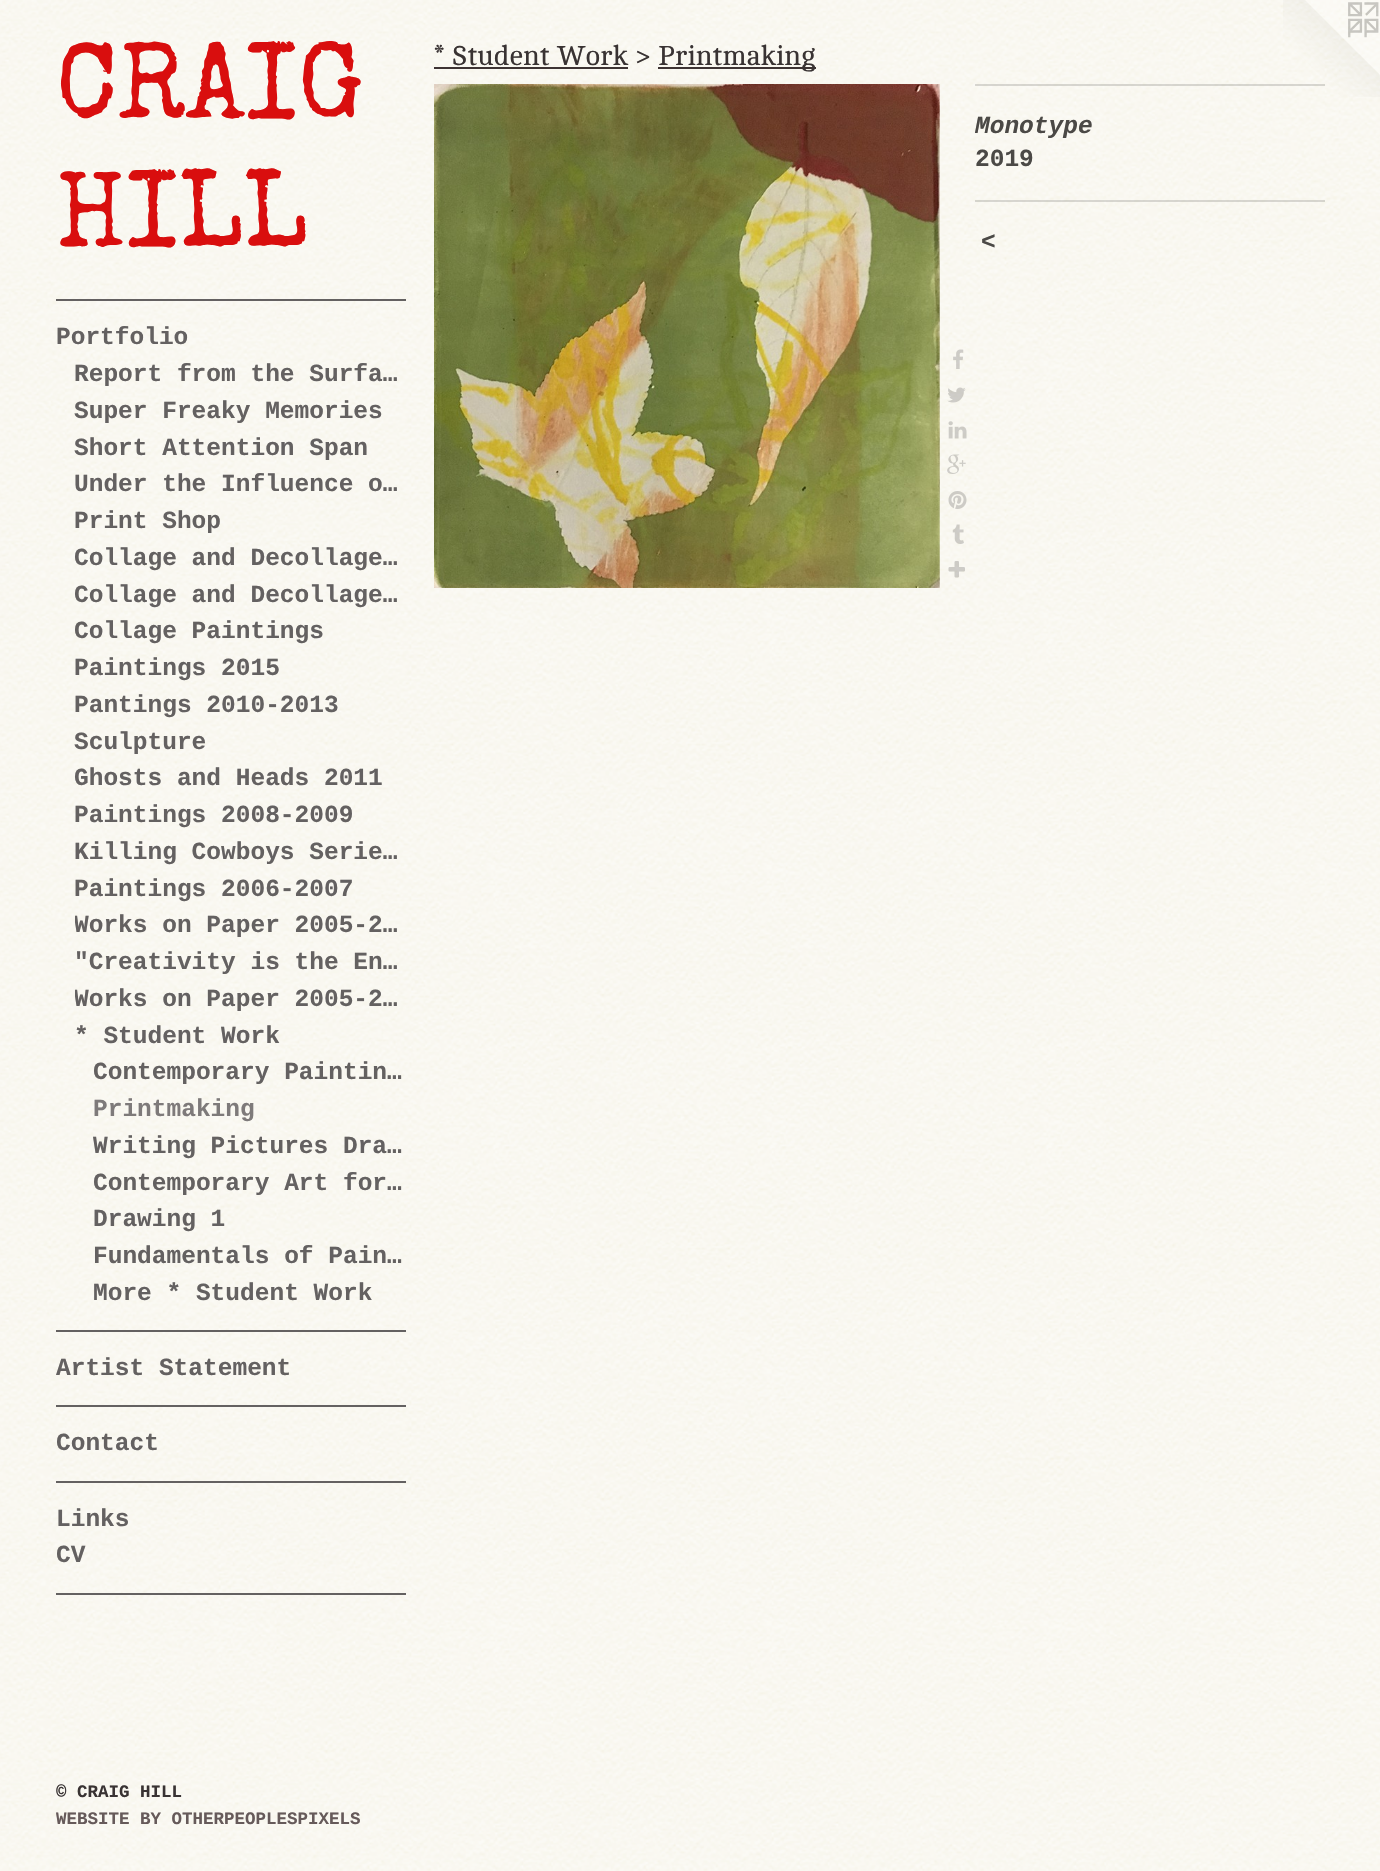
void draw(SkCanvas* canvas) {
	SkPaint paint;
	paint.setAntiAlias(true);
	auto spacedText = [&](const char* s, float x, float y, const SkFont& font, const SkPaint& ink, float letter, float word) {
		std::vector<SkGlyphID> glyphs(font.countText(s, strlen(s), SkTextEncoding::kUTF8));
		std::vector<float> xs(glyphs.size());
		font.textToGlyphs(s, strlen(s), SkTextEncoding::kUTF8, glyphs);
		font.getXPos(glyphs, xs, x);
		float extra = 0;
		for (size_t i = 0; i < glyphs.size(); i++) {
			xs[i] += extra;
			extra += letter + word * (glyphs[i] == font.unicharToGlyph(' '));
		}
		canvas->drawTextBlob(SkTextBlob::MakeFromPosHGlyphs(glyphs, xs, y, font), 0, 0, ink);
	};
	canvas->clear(0xffffffff);
	canvas->drawImageRect(SkImages::DeferredFromEncodedData(SkData::MakeFromFileName("img1.png")), SkRect::MakeXYWH(0, 0, 1380, 1871), SkSamplingOptions());
	SkFont f1(fontMgr->matchFamilyStyle("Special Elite", SkFontStyle::Normal()), 107);
	f1.setSubpixel(true);
	paint.setColor(0xffd90e0e);
	canvas->drawString("CRAIG", 56, 117, f1, paint);
	canvas->drawString("HILL", 56, 245, f1, paint);
	paint.setColor(0xff646161);
	canvas->drawRect(SkRect::MakeXYWH(56, 299, 350, 2), paint);
	SkFont f2(fontMgr->matchFamilyStyle("Liberation Mono", SkFontStyle::Bold()), 24.5);
	f2.setSubpixel(true);
	canvas->drawString("Portfolio", 56, 344, f2, paint);
	canvas->drawString("Report from the Surfa…", 74, 381, f2, paint);
	canvas->drawString("Super Freaky Memories", 74, 418, f2, paint);
	canvas->drawString("Short Attention Span", 74, 455, f2, paint);
	canvas->drawString("Under the Influence o…", 74, 491, f2, paint);
	canvas->drawString("Print Shop", 74, 528, f2, paint);
	canvas->drawString("Collage and Decollage…", 74, 565, f2, paint);
	canvas->drawString("Collage and Decollage…", 74, 602, f2, paint);
	canvas->drawString("Collage Paintings", 74, 638, f2, paint);
	canvas->drawString("Paintings 2015", 74, 675, f2, paint);
	canvas->drawString("Pantings 2010-2013", 74, 712, f2, paint);
	canvas->drawString("Sculpture", 74, 749, f2, paint);
	canvas->drawString("Ghosts and Heads 2011", 74, 785, f2, paint);
	canvas->drawString("Paintings 2008-2009", 74, 822, f2, paint);
	canvas->drawString("Killing Cowboys Serie…", 74, 859, f2, paint);
	canvas->drawString("Paintings 2006-2007", 74, 896, f2, paint);
	canvas->save();
	canvas->clipRect(SkRect::MakeXYWH(75, 908, 331, 37));
	canvas->drawString("Works on Paper 2005-2…", 74, 932, f2, paint);
	canvas->restore();
	canvas->drawString("\"Creativity is the En…", 74, 969, f2, paint);
	canvas->save();
	canvas->clipRect(SkRect::MakeXYWH(75, 982, 331, 37));
	canvas->drawString("Works on Paper 2005-2…", 74, 1006, f2, paint);
	canvas->restore();
	canvas->drawString("* Student Work", 74, 1043, f2, paint);
	canvas->drawString("Contemporary Paintin…", 93, 1079, f2, paint);
	paint.setColor(0xff7e7a7a);
	canvas->drawString("Printmaking", 93, 1116, f2, paint);
	paint.setColor(0xff646161);
	canvas->drawString("Writing Pictures Dra…", 93, 1153, f2, paint);
	canvas->drawString("Contemporary Art for…", 93, 1190, f2, paint);
	canvas->drawString("Drawing 1", 93, 1226, f2, paint);
	canvas->drawString("Fundamentals of Pain…", 93, 1263, f2, paint);
	canvas->drawString("More * Student Work", 93, 1300, f2, paint);
	canvas->drawRect(SkRect::MakeXYWH(56, 1330, 350, 2), paint);
	canvas->drawString("Artist Statement", 56, 1375, f2, paint);
	canvas->drawRect(SkRect::MakeXYWH(56, 1405, 350, 2), paint);
	canvas->drawString("Contact", 56, 1450, f2, paint);
	canvas->drawRect(SkRect::MakeXYWH(56, 1481, 350, 2), paint);
	canvas->drawString("Links", 56, 1526, f2, paint);
	canvas->drawString("CV", 56, 1562, f2, paint);
	canvas->drawRect(SkRect::MakeXYWH(56, 1593, 350, 2), paint);
	SkFont f3(fontMgr->matchFamilyStyle("Liberation Mono", SkFontStyle::Bold()), 17.5);
	f3.setSubpixel(true);
	paint.setColor(0xff393333);
	canvas->drawString("© CRAIG HILL", 56, 1797, f3, paint);
	paint.setColor(0xff665a5a);
	canvas->drawString("WEBSITE BY OTHERPEOPLESPIXELS", 56, 1824, f3, paint);
	SkFont f4(fontMgr->matchFamilyStyle("Cambo", SkFontStyle::Normal()), 28);
	f4.setSubpixel(true);
	paint.setColor(0xff393333);
	canvas->drawString("* Student Work >", 434, 65, f4, paint);
	paint.setColor(0xff3d3333);
	canvas->drawRect(SkRect::MakeXYWH(434, 67, 194, 2), paint);
	canvas->drawRect(SkRect::MakeXYWH(658, 67, 158, 2), paint);
	paint.setColor(0xff393333);
	canvas->drawString("Printmaking", 658, 65, f4, paint);
	canvas->drawImageRect(SkImages::DeferredFromEncodedData(SkData::MakeFromFileName("img2.png")), SkRect::MakeXYWH(434, 84, 506, 504), SkSamplingOptions());
	canvas->drawImageRect(SkImages::DeferredFromEncodedData(SkData::MakeFromFileName("img3.png")), SkRect::MakeXYWH(953, 349, 11, 20), SkSamplingOptions());
	canvas->drawImageRect(SkImages::DeferredFromEncodedData(SkData::MakeFromFileName("img4.png")), SkRect::MakeXYWH(947, 387, 19, 16), SkSamplingOptions());
	canvas->drawImageRect(SkImages::DeferredFromEncodedData(SkData::MakeFromFileName("img5.png")), SkRect::MakeXYWH(948, 421, 19, 18), SkSamplingOptions());
	canvas->drawImageRect(SkImages::DeferredFromEncodedData(SkData::MakeFromFileName("img6.png")), SkRect::MakeXYWH(947, 454, 19, 20), SkSamplingOptions());
	canvas->drawImageRect(SkImages::DeferredFromEncodedData(SkData::MakeFromFileName("img7.png")), SkRect::MakeXYWH(948, 491, 19, 18), SkSamplingOptions());
	canvas->drawImageRect(SkImages::DeferredFromEncodedData(SkData::MakeFromFileName("img8.png")), SkRect::MakeXYWH(952, 524, 12, 20), SkSamplingOptions());
	canvas->drawImageRect(SkImages::DeferredFromEncodedData(SkData::MakeFromFileName("img9.png")), SkRect::MakeXYWH(948, 561, 17, 17), SkSamplingOptions());
	canvas->drawImageRect(SkImages::DeferredFromEncodedData(SkData::MakeFromFileName("img10.png")), SkRect::MakeXYWH(1283, 0, 97, 97), SkSamplingOptions());
	paint.setColor(0x334b4946);
	canvas->drawRect(SkRect::MakeXYWH(975, 84, 350, 2), paint);
	SkFont f5(fontMgr->matchFamilyStyle("Liberation Mono", SkFontStyle::BoldItalic()), 24.5);
	f5.setSubpixel(true);
	paint.setColor(0xff4b4946);
	canvas->drawString("Monotype", 975, 133, f5, paint);
	canvas->drawString("2019", 975, 166, f2, paint);
	paint.setColor(0x334b4946);
	canvas->drawRect(SkRect::MakeXYWH(975, 200, 350, 2), paint);
	paint.setColor(0xff4b4946);
	spacedText("<", 981, 249, f5, paint, 2, 0);
}
